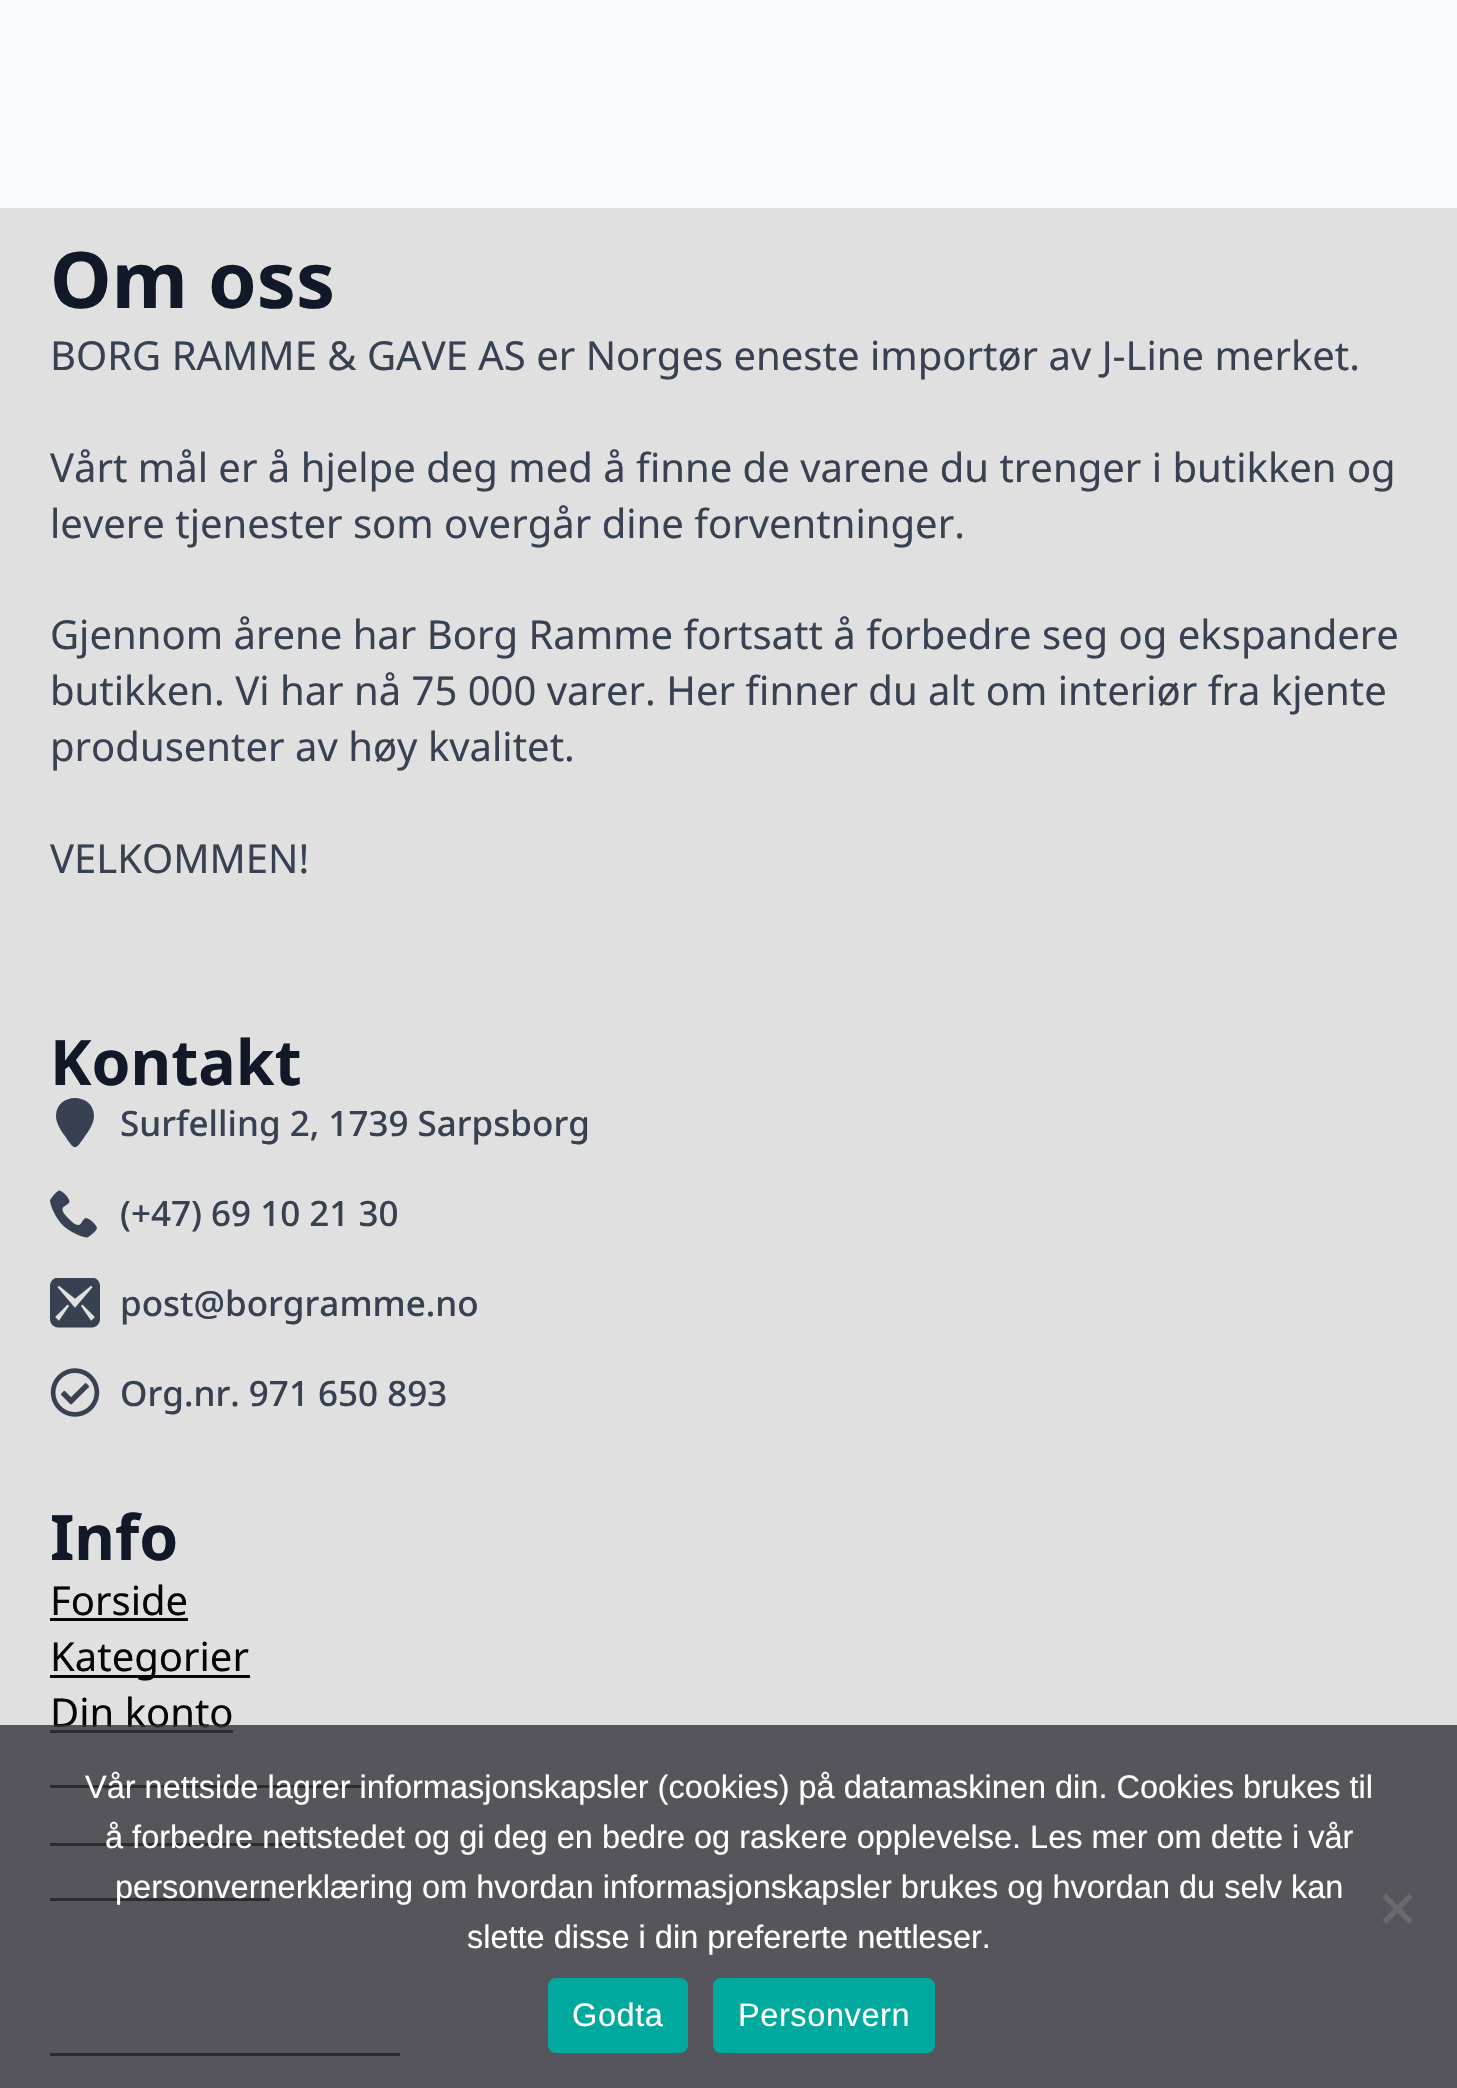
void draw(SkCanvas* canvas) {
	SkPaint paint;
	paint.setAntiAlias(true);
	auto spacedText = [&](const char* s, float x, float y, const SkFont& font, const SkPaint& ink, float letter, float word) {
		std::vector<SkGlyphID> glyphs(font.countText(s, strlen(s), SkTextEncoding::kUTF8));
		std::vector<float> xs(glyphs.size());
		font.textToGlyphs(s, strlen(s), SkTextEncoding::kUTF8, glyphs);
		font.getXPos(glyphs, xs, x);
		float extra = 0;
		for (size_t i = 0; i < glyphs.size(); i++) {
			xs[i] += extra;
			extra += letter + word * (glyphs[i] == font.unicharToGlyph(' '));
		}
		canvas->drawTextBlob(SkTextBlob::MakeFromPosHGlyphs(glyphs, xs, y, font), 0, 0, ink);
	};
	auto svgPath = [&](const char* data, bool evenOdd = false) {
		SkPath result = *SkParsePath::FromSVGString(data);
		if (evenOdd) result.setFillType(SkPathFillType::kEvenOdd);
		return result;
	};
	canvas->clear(0xfff9fafb);
	paint.setColor(0xffe0e0e0);
	canvas->drawRect(SkRect::MakeXYWH(0, 208, 1457, 1880), paint);
	SkFont f1(fontMgr->matchFamilyStyle("Noto Sans", SkFontStyle::Bold()), 78);
	f1.setSubpixel(true);
	paint.setColor(0xff111827);
	canvas->drawString("Om oss", 50, 308, f1, paint);
	SkFont f2(fontMgr->matchFamilyStyle("Noto Sans", SkFontStyle::Normal()), 40);
	f2.setSubpixel(true);
	paint.setColor(0xff374151);
	canvas->drawString("BORG RAMME & GAVE AS er Norges eneste importør av J-Line merket.", 50, 370, f2, paint);
	canvas->drawString("Vårt mål er å hjelpe deg med å finne de varene du trenger i butikken og", 50, 482, f2, paint);
	canvas->drawString("levere tjenester som overgår dine forventninger.", 50, 538, f2, paint);
	canvas->drawString("Gjennom årene har Borg Ramme fortsatt å forbedre seg og ekspandere", 50, 649, f2, paint);
	canvas->drawString("butikken. Vi har nå 75 000 varer. Her finner du alt om interiør fra kjente", 50, 705, f2, paint);
	canvas->drawString("produsenter av høy kvalitet.", 50, 761, f2, paint);
	canvas->drawString("VELKOMMEN!", 50, 873, f2, paint);
	SkFont f3(fontMgr->matchFamilyStyle("Noto Sans", SkFontStyle::Bold()), 62.5);
	f3.setSubpixel(true);
	paint.setColor(0xff111827);
	canvas->drawString("Kontakt", 50, 1085, f3, paint);
	paint.setColor(0xff374151);
	canvas->drawPath(svgPath("M94 1116C94 1123 89 1131 85 1136C75 1151 75 1151 65 1136C61 1131 56 1123 56 1116C56 1092 94 1092 94 1116Z"), paint);
	SkFont f4(fontMgr->matchFamilyStyle("Noto Sans", SkFontStyle(500, SkFontStyle::kNormal_Width, SkFontStyle::kUpright_Slant)), 35);
	f4.setSubpixel(true);
	canvas->drawString("Surfelling 2, 1739 Sarpsborg", 120, 1136, f4, paint);
	canvas->drawImageRect(SkImages::DeferredFromEncodedData(SkData::MakeFromFileName("img1.png")), SkRect::MakeXYWH(50, 1190, 47, 48), SkSamplingOptions());
	canvas->drawString("(+47) 69 10 21 30", 120, 1226, f4, paint);
	canvas->drawImageRect(SkImages::DeferredFromEncodedData(SkData::MakeFromFileName("img2.png")), SkRect::MakeXYWH(50, 1278, 50, 50), SkSamplingOptions());
	canvas->drawString("post@borgramme.no", 120, 1316, f4, paint);
	canvas->drawImageRect(SkImages::DeferredFromEncodedData(SkData::MakeFromFileName("img3.png")), SkRect::MakeXYWH(50, 1368, 50, 49), SkSamplingOptions());
	canvas->drawString("Org.nr. 971 650 893", 120, 1406, f4, paint);
	paint.setColor(0xff111827);
	canvas->drawString("Info", 50, 1560, f3, paint);
	paint.setColor(0xff060606);
	canvas->drawString("Forside", 50, 1615, f2, paint);
	canvas->drawRect(SkRect::MakeXYWH(50, 1618, 138, 3), paint);
	canvas->drawRect(SkRect::MakeXYWH(50, 1675, 200, 3), paint);
	canvas->drawString("Kategorier", 50, 1671, f2, paint);
	canvas->drawString("Din konto", 50, 1727, f2, paint);
	canvas->drawRect(SkRect::MakeXYWH(50, 1730, 183, 3), paint);
	canvas->drawRect(SkRect::MakeXYWH(50, 1785, 315, 3), paint);
	canvas->drawRect(SkRect::MakeXYWH(50, 1843, 258, 3), paint);
	canvas->drawRect(SkRect::MakeXYWH(50, 1898, 220, 3), paint);
	canvas->drawRect(SkRect::MakeXYWH(50, 2053, 350, 3), paint);
	paint.setColor(0xcc32323a);
	canvas->drawRect(SkRect::MakeXYWH(0, 1725, 1457, 363), paint);
	SkFont f5(fontMgr->matchFamilyStyle("Liberation Sans", SkFontStyle::Normal()), 32.5);
	f5.setSubpixel(true);
	paint.setColor(0xffffffff);
	canvas->drawString("Vår nettside lagrer informasjonskapsler (cookies) på datamaskinen din. Cookies brukes til", 85, 1798, f5, paint);
	canvas->drawString("å forbedre nettstedet og gi deg en bedre og raskere opplevelse. Les mer om dette i vår", 105, 1848, f5, paint);
	canvas->drawString("personvernerklæring om hvordan informasjonskapsler brukes og hvordan du selv kan", 115, 1898, f5, paint);
	canvas->drawString("slette disse i din prefererte nettleser.", 467, 1948, f5, paint);
	paint.setColor(0xff6a6a6e);
	canvas->drawPath(svgPath("M1409 1893.5L1412.5 1897.5L1386 1924L1382.5 1920Z"), paint);
	canvas->drawPath(svgPath("M1382.5 1897.5L1386 1893.5L1412.5 1920L1409 1924Z"), paint);
	paint.setColor(0xff00a99d);
	canvas->drawRoundRect(SkRect::MakeXYWH(548, 1978, 140, 75), 8, 8, paint);
	paint.setColor(0xffffffff);
	spacedText("Godta", 572, 2026, f5, paint, 0.6, 0);
	paint.setColor(0xff00a99d);
	canvas->drawRoundRect(SkRect::MakeXYWH(713, 1978, 222, 75), 8, 8, paint);
	paint.setColor(0xffffffff);
	spacedText("Personvern", 738, 2026, f5, paint, 0.6, 0);
}
